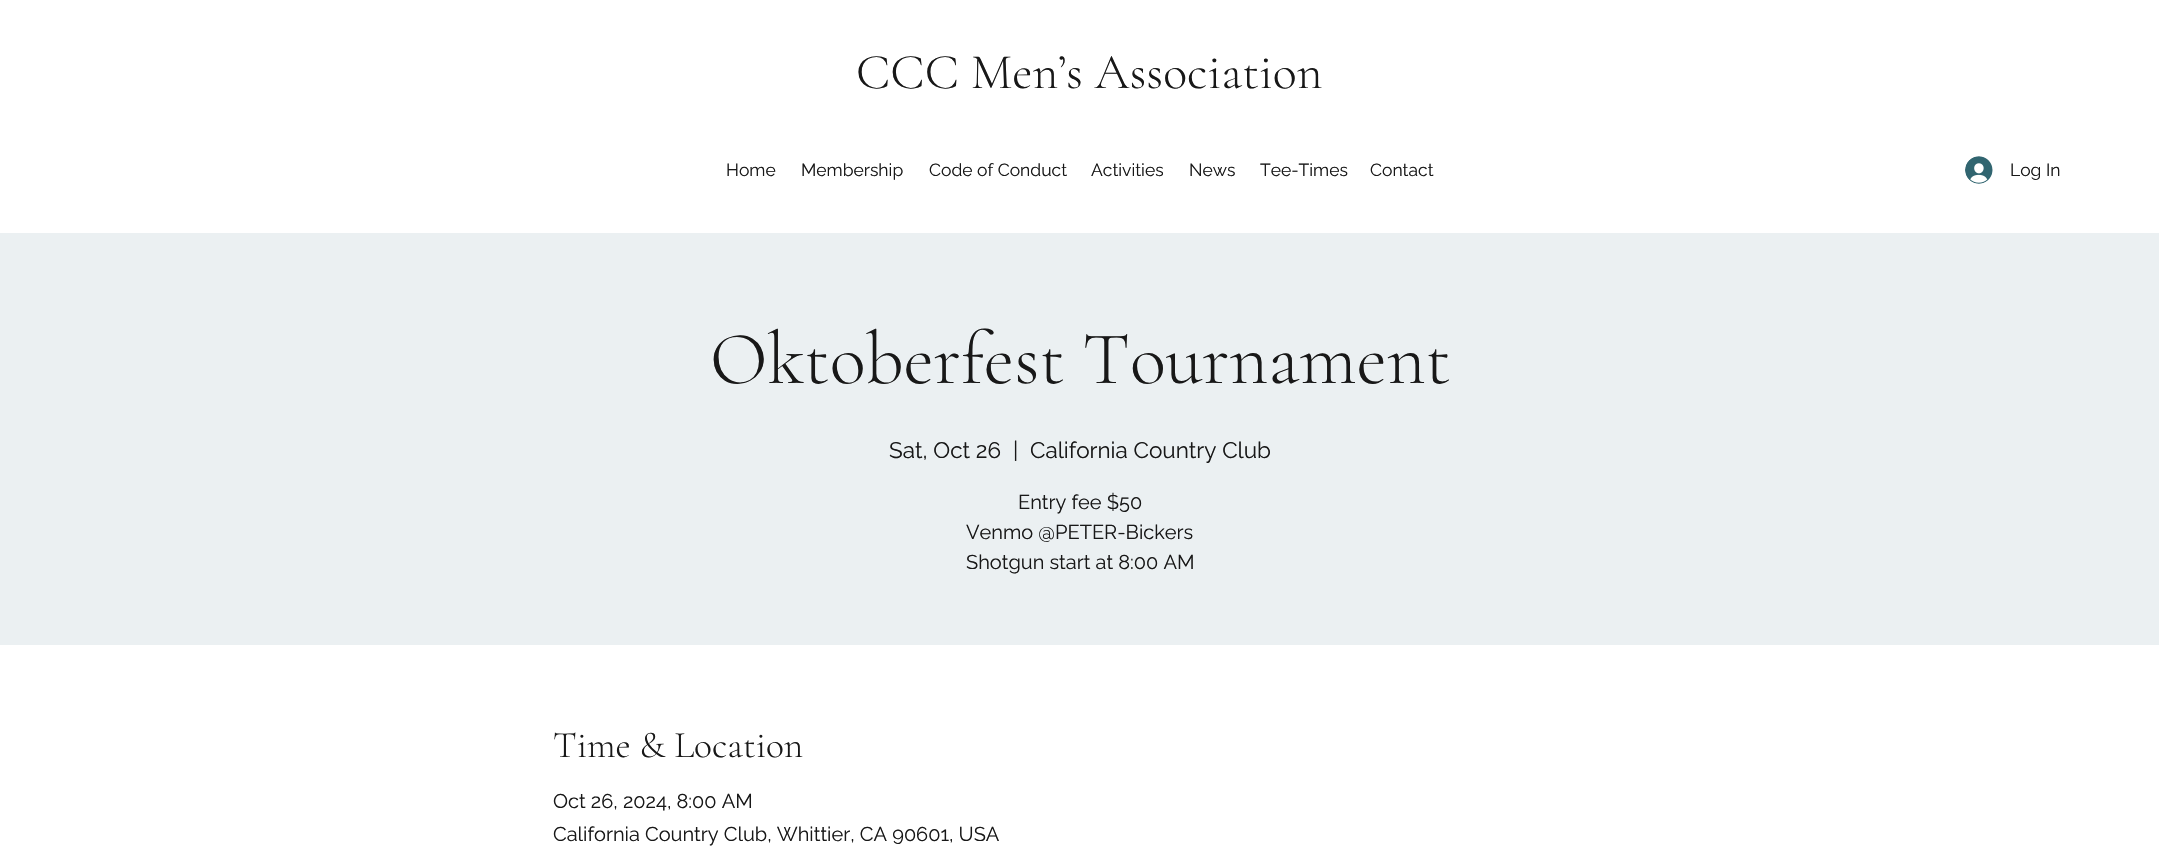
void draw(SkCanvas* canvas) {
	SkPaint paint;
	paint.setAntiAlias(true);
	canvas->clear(0xffffffff);
	SkFont f1(fontMgr->matchFamilyStyle("Cormorant Garamond", SkFontStyle(300, SkFontStyle::kNormal_Width, SkFontStyle::kUpright_Slant)), 50);
	f1.setSubpixel(true);
	paint.setColor(0xff181818);
	canvas->drawString("CCC Men’s Association", 856, 88, f1, paint);
	SkFont f2(fontMgr->matchFamilyStyle("Raleway", SkFontStyle::Normal()), 17.5);
	f2.setSubpixel(true);
	canvas->drawString("Home", 726, 176, f2, paint);
	canvas->drawString("Membership", 801, 176, f2, paint);
	canvas->drawString("Code of Conduct", 929, 176, f2, paint);
	canvas->drawString("Activities", 1091, 176, f2, paint);
	canvas->drawString("News", 1189, 176, f2, paint);
	canvas->drawString("Tee-Times", 1260, 176, f2, paint);
	canvas->drawString("Contact", 1370, 176, f2, paint);
	canvas->drawImageRect(SkImages::DeferredFromEncodedData(SkData::MakeFromFileName("img1.png")), SkRect::MakeXYWH(1965, 156, 28, 28), SkSamplingOptions());
	canvas->drawString("Log In", 2010, 176, f2, paint);
	paint.setColor(0xffebf0f2);
	canvas->drawRect(SkRect::MakeXYWH(0, 233, 2159, 412), paint);
	SkFont f3(fontMgr->matchFamilyStyle("Cormorant Garamond", SkFontStyle(300, SkFontStyle::kNormal_Width, SkFontStyle::kUpright_Slant)), 75);
	f3.setSubpixel(true);
	paint.setColor(0xff181818);
	canvas->drawString("Oktoberfest Tournament", 710, 383, f3, paint);
	SkFont f4(fontMgr->matchFamilyStyle("Raleway", SkFontStyle::Normal()), 22.5);
	f4.setSubpixel(true);
	canvas->drawString("Sat, Oct 26", 889, 458, f4, paint);
	canvas->drawString("|", 1013, 458, f4, paint);
	canvas->drawString("California Country Club", 1030, 458, f4, paint);
	SkFont f5(fontMgr->matchFamilyStyle("Raleway", SkFontStyle::Normal()), 20);
	f5.setSubpixel(true);
	canvas->drawString("Entry fee $50", 1018, 509, f5, paint);
	canvas->drawString("Venmo @PETER-Bickers", 966, 539, f5, paint);
	canvas->drawString("Shotgun start at 8:00 AM", 966, 569, f5, paint);
	SkFont f6(fontMgr->matchFamilyStyle("Cormorant Garamond", SkFontStyle(300, SkFontStyle::kNormal_Width, SkFontStyle::kUpright_Slant)), 37.5);
	f6.setSubpixel(true);
	canvas->drawString("Time & Location", 553, 757, f6, paint);
	canvas->drawString("Oct 26, 2024, 8:00 AM", 553, 808, f5, paint);
	canvas->drawString("California Country Club, Whittier, CA 90601, USA", 553, 841, f5, paint);
}
